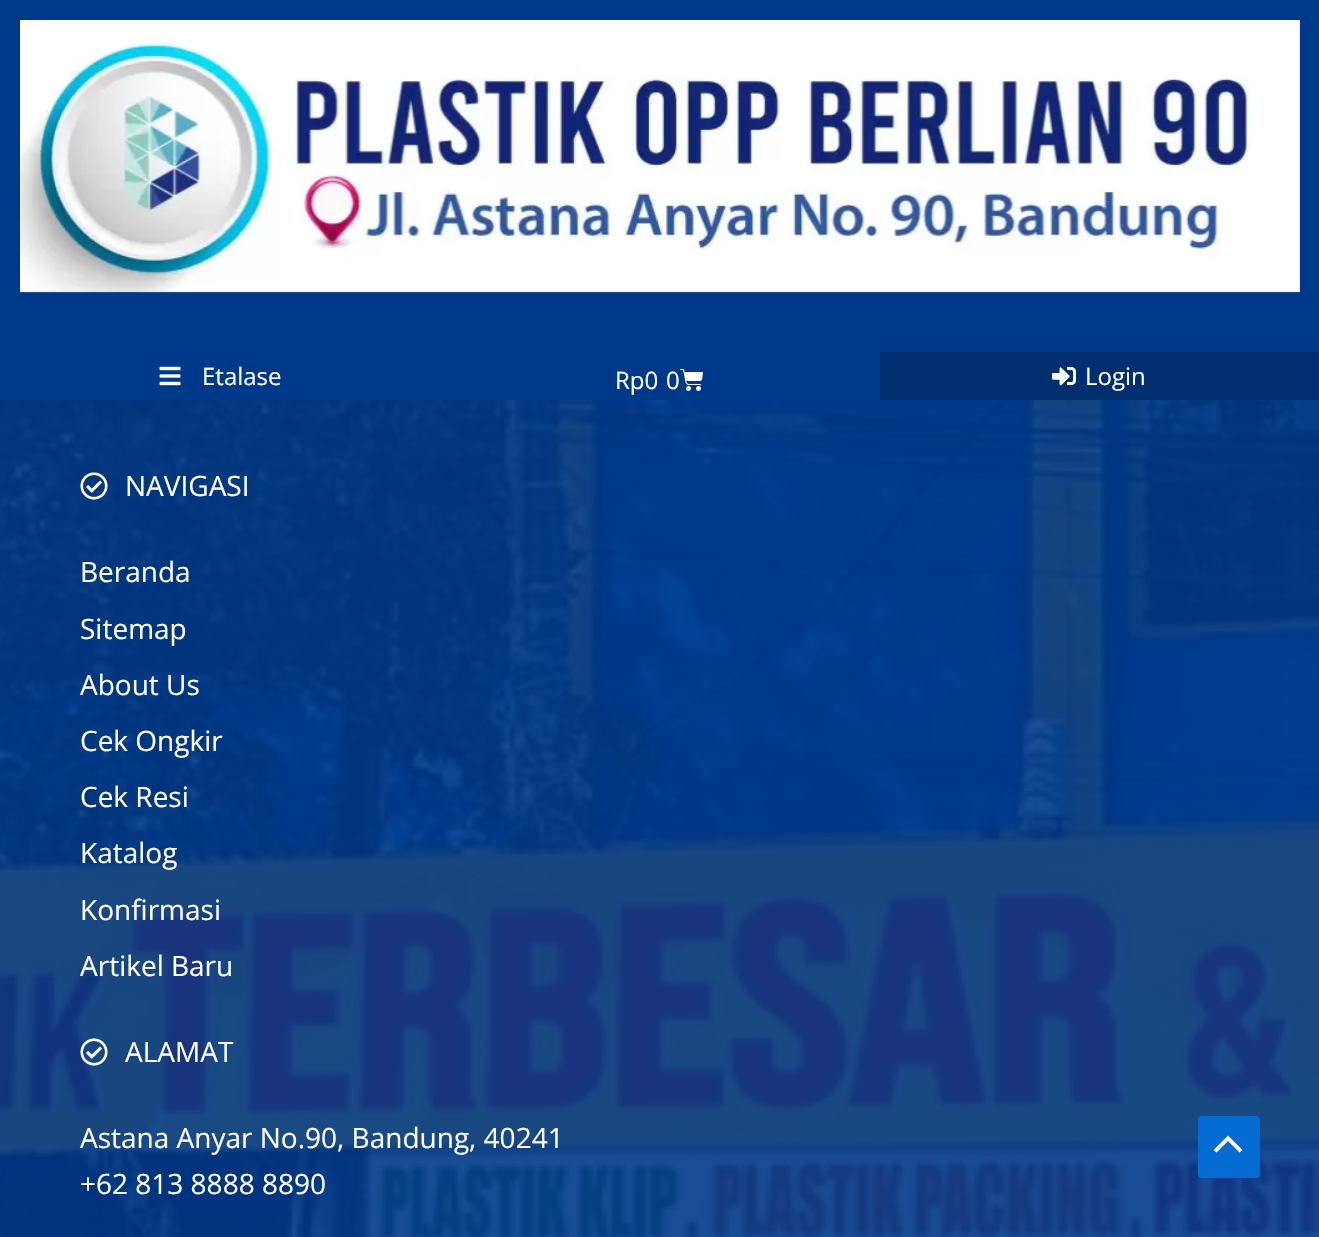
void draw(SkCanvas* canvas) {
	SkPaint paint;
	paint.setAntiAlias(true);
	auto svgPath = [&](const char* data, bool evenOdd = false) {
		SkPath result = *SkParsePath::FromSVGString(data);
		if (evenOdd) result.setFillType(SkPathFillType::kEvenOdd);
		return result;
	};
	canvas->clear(0xffffffff);
	paint.setColor(0xff00398a);
	canvas->drawRect(SkRect::MakeXYWH(0, 0, 1319, 400), paint);
	canvas->drawImageRect(SkImages::DeferredFromEncodedData(SkData::MakeFromFileName("img1.png")), SkRect::MakeXYWH(20, 20, 1280, 273), SkSamplingOptions());
	canvas->drawImageRect(SkImages::DeferredFromEncodedData(SkData::MakeFromFileName("img2.png")), SkRect::MakeXYWH(159, 366, 22, 20), SkSamplingOptions());
	SkFont f1(fontMgr->matchFamilyStyle("Open Sans", SkFontStyle::Normal()), 24);
	f1.setSubpixel(true);
	paint.setColor(0xffffffff);
	canvas->drawString("Etalase", 202, 385, f1, paint);
	canvas->drawString("Rp0", 615, 389, f1, paint);
	canvas->drawString("0", 666, 389, f1, paint);
	canvas->drawImageRect(SkImages::DeferredFromEncodedData(SkData::MakeFromFileName("img3.png")), SkRect::MakeXYWH(680, 369, 23, 22), SkSamplingOptions());
	paint.setColor(0xff002e6e);
	canvas->drawRect(SkRect::MakeXYWH(880, 352, 438, 48), paint);
	canvas->drawImageRect(SkImages::DeferredFromEncodedData(SkData::MakeFromFileName("img4.png")), SkRect::MakeXYWH(1052, 367, 24, 19), SkSamplingOptions());
	paint.setColor(0xffffffff);
	canvas->drawString("Login", 1085, 385, f1, paint);
	canvas->drawImageRect(SkImages::DeferredFromEncodedData(SkData::MakeFromFileName("img5.png")), SkRect::MakeXYWH(0, 400, 1319, 837), SkSamplingOptions());
	canvas->drawImageRect(SkImages::DeferredFromEncodedData(SkData::MakeFromFileName("img6.png")), SkRect::MakeXYWH(80, 472, 28, 28), SkSamplingOptions());
	SkFont f2(fontMgr->matchFamilyStyle("Open Sans", SkFontStyle::Normal()), 28);
	f2.setSubpixel(true);
	canvas->drawString("NAVIGASI", 125, 496, f2, paint);
	canvas->drawString("Beranda", 80, 582, f2, paint);
	canvas->drawString("Sitemap", 80, 639, f2, paint);
	canvas->drawString("About Us", 80, 695, f2, paint);
	canvas->drawString("Cek Ongkir", 80, 751, f2, paint);
	canvas->drawString("Cek Resi", 80, 807, f2, paint);
	canvas->drawString("Katalog", 80, 863, f2, paint);
	canvas->drawString("Konfirmasi", 80, 920, f2, paint);
	canvas->drawString("Artikel Baru", 80, 976, f2, paint);
	canvas->drawImageRect(SkImages::DeferredFromEncodedData(SkData::MakeFromFileName("img7.png")), SkRect::MakeXYWH(80, 1038, 28, 28), SkSamplingOptions());
	canvas->drawString("ALAMAT", 125, 1062, f2, paint);
	canvas->drawString("Astana Anyar No.90, Bandung, 40241", 80, 1148, f2, paint);
	canvas->drawString("+62 813 8888 8890", 80, 1194, f2, paint);
	paint.setColor(0xff046bd2);
	canvas->drawRoundRect(SkRect::MakeXYWH(1198, 1116, 62, 62), 4, 4, paint);
	paint.setColor(0xffffffff);
	canvas->drawPath(svgPath("M1242.5 1150L1228 1135.5L1213.5 1150L1216.5 1152.5L1228 1141L1239.5 1152.5Z"), paint);
}
